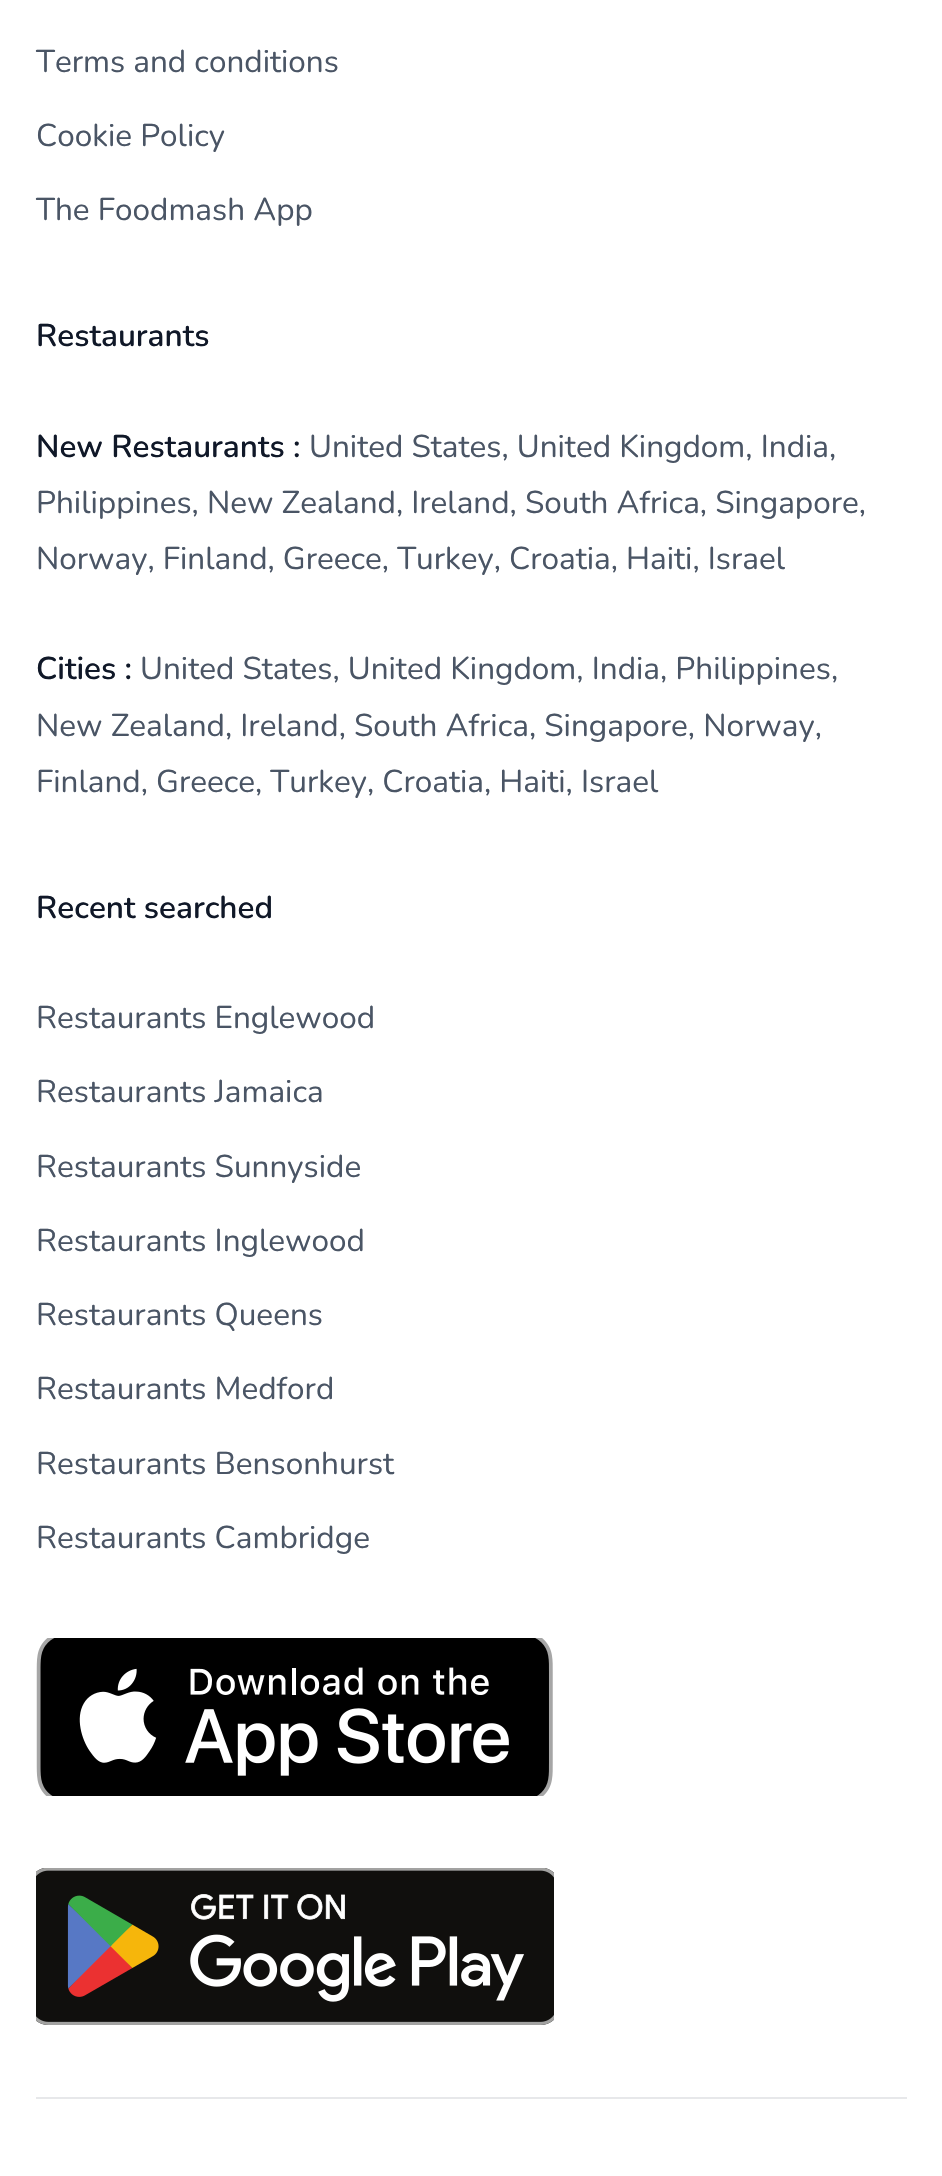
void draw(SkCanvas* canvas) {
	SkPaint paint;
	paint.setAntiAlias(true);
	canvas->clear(0xffffffff);
	SkFont f1(fontMgr->matchFamilyStyle("Nunito", SkFontStyle::Normal()), 31.5);
	f1.setSubpixel(true);
	paint.setColor(0xff4a5565);
	canvas->drawString("Terms and conditions", 36, 72, f1, paint);
	canvas->drawString("Cookie Policy", 36, 146, f1, paint);
	canvas->drawString("The Foodmash App", 36, 220, f1, paint);
	SkFont f2(fontMgr->matchFamilyStyle("Nunito", SkFontStyle(600, SkFontStyle::kNormal_Width, SkFontStyle::kUpright_Slant)), 31.5);
	f2.setSubpixel(true);
	paint.setColor(0xff101828);
	canvas->drawString("Restaurants", 36, 346, f2, paint);
	canvas->drawString("New Restaurants :", 36, 457, f2, paint);
	paint.setColor(0xff4a5565);
	canvas->drawString("United States, United Kingdom, India,", 309, 457, f1, paint);
	canvas->drawString("Philippines, New Zealand, Ireland, South Africa, Singapore,", 36, 513, f1, paint);
	canvas->drawString("Norway, Finland, Greece, Turkey, Croatia, Haiti, Israel", 36, 569, f1, paint);
	paint.setColor(0xff101828);
	canvas->drawString("Cities :", 36, 679, f2, paint);
	paint.setColor(0xff4a5565);
	canvas->drawString("United States, United Kingdom, India, Philippines,", 140, 679, f1, paint);
	canvas->drawString("New Zealand, Ireland, South Africa, Singapore, Norway,", 36, 736, f1, paint);
	canvas->drawString("Finland, Greece, Turkey, Croatia, Haiti, Israel", 36, 792, f1, paint);
	paint.setColor(0xff101828);
	canvas->drawString("Recent searched", 36, 918, f2, paint);
	paint.setColor(0xff4a5565);
	canvas->drawString("Restaurants Englewood", 36, 1028, f1, paint);
	canvas->drawString("Restaurants Jamaica", 36, 1102, f1, paint);
	canvas->drawString("Restaurants Sunnyside", 36, 1177, f1, paint);
	canvas->drawString("Restaurants Inglewood", 36, 1251, f1, paint);
	canvas->drawString("Restaurants Queens", 36, 1325, f1, paint);
	canvas->drawString("Restaurants Medford", 36, 1399, f1, paint);
	canvas->drawString("Restaurants Bensonhurst", 36, 1474, f1, paint);
	canvas->drawString("Restaurants Cambridge", 36, 1548, f1, paint);
	canvas->drawImageRect(SkImages::DeferredFromEncodedData(SkData::MakeFromFileName("img1.png")), SkRect::MakeXYWH(36, 1638, 517, 158), SkSamplingOptions());
	canvas->drawImageRect(SkImages::DeferredFromEncodedData(SkData::MakeFromFileName("img2.png")), SkRect::MakeXYWH(36, 1868, 518, 157), SkSamplingOptions());
	paint.setColor(0xffe7e8ea);
	canvas->drawRect(SkRect::MakeXYWH(36, 2097, 871, 2), paint);
}
